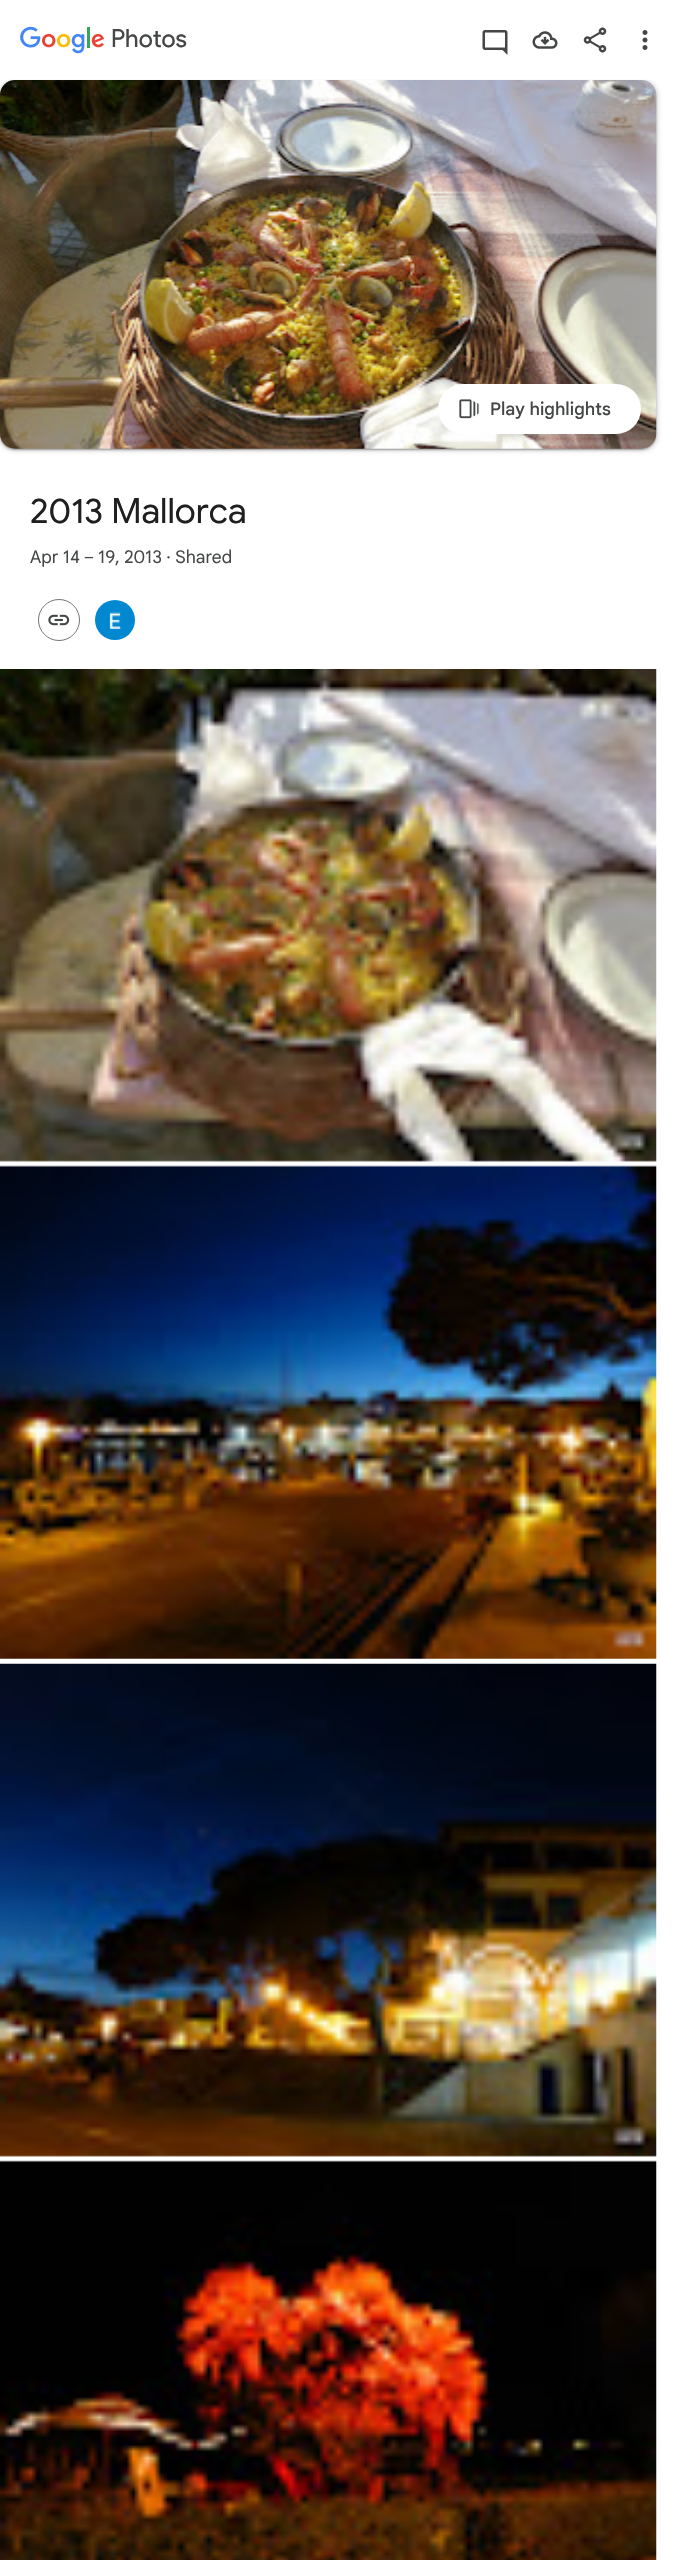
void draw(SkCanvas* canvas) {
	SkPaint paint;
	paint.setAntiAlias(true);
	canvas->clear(0xffffffff);
	canvas->drawImageRect(SkImages::DeferredFromEncodedData(SkData::MakeFromFileName("img1.png")), SkRect::MakeXYWH(20, 26, 84, 28), SkSamplingOptions());
	SkFont f1(fontMgr->matchFamilyStyle("Product Sans", SkFontStyle::Normal()), 25);
	f1.setSubpixel(true);
	paint.setColor(0xff444746);
	canvas->drawString("Photos", 111, 47, f1, paint);
	canvas->drawImageRect(SkImages::DeferredFromEncodedData(SkData::MakeFromFileName("img2.png")), SkRect::MakeXYWH(482, 30, 26, 25), SkSamplingOptions());
	canvas->drawImageRect(SkImages::DeferredFromEncodedData(SkData::MakeFromFileName("img3.png")), SkRect::MakeXYWH(532, 31, 26, 18), SkSamplingOptions());
	canvas->drawImageRect(SkImages::DeferredFromEncodedData(SkData::MakeFromFileName("img4.png")), SkRect::MakeXYWH(583, 27, 24, 26), SkSamplingOptions());
	canvas->drawImageRect(SkImages::DeferredFromEncodedData(SkData::MakeFromFileName("img5.png")), SkRect::MakeXYWH(642, 30, 6, 20), SkSamplingOptions());
	paint.setColor(0xfff8fafd);
	canvas->drawRoundRect(SkRect::MakeXYWH(0, 80, 656, 369), 15, 15, paint);
	canvas->save();
	canvas->clipRect(SkRect::MakeXYWH(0, 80, 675, 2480));
	paint.setColor(0x26000000);
	paint.setMaskFilter(SkMaskFilter::MakeBlur(kNormal_SkBlurStyle, 2));
	canvas->drawRoundRect(SkRect::MakeXYWH(-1, 80, 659, 371), 16, 16, paint);
	paint.setMaskFilter(nullptr);
	canvas->restore();
	paint.setColor(0x4d000000);
	paint.setMaskFilter(SkMaskFilter::MakeBlur(kNormal_SkBlurStyle, 1));
	canvas->drawRoundRect(SkRect::MakeXYWH(0, 81, 656, 369), 15, 15, paint);
	paint.setMaskFilter(nullptr);
	canvas->drawImageRect(SkImages::DeferredFromEncodedData(SkData::MakeFromFileName("img6.png")), SkRect::MakeXYWH(0, 80, 657, 369), SkSamplingOptions());
	paint.setColor(0xffffffff);
	canvas->drawRoundRect(SkRect::MakeXYWH(438, 384, 203, 50), 25, 25, paint);
	canvas->drawImageRect(SkImages::DeferredFromEncodedData(SkData::MakeFromFileName("img7.png")), SkRect::MakeXYWH(459, 399, 20, 20), SkSamplingOptions());
	SkFont f2(fontMgr->matchFamilyStyle("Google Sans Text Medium", SkFontStyle(500, SkFontStyle::kNormal_Width, SkFontStyle::kUpright_Slant)), 17.5);
	f2.setSubpixel(true);
	paint.setColor(0xff444746);
	canvas->drawString("Play highlights", 490, 415, f2, paint);
	SkFont f3(fontMgr->matchFamilyStyle("Google Sans", SkFontStyle::Normal()), 35);
	f3.setSubpixel(true);
	paint.setColor(0xff1f1f1f);
	canvas->drawString("2013 Mallorca", 30, 523, f3, paint);
	SkFont f4(fontMgr->matchFamilyStyle("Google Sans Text", SkFontStyle::Normal()), 17.5);
	f4.setSubpixel(true);
	paint.setColor(0xff444746);
	canvas->drawString("Apr 14 – 19, 2013 · Shared", 30, 563, f4, paint);
	paint.setStroke(true);
	paint.setStrokeWidth(1);
	paint.setColor(0xff747775);
	canvas->drawCircle(59, 620, 20.5, paint);
	canvas->drawImageRect(SkImages::DeferredFromEncodedData(SkData::MakeFromFileName("img8.png")), SkRect::MakeXYWH(48, 614, 22, 12), SkSamplingOptions());
	canvas->drawImageRect(SkImages::DeferredFromEncodedData(SkData::MakeFromFileName("img9.png")), SkRect::MakeXYWH(95, 600, 40, 40), SkSamplingOptions());
	canvas->drawImageRect(SkImages::DeferredFromEncodedData(SkData::MakeFromFileName("img10.png")), SkRect::MakeXYWH(0, 669, 657, 493), SkSamplingOptions());
	canvas->drawImageRect(SkImages::DeferredFromEncodedData(SkData::MakeFromFileName("img11.png")), SkRect::MakeXYWH(0, 1165, 657, 494), SkSamplingOptions());
	canvas->drawImageRect(SkImages::DeferredFromEncodedData(SkData::MakeFromFileName("img12.png")), SkRect::MakeXYWH(0, 1663, 657, 494), SkSamplingOptions());
	canvas->drawImageRect(SkImages::DeferredFromEncodedData(SkData::MakeFromFileName("img13.png")), SkRect::MakeXYWH(0, 2160, 657, 400), SkSamplingOptions());
}
